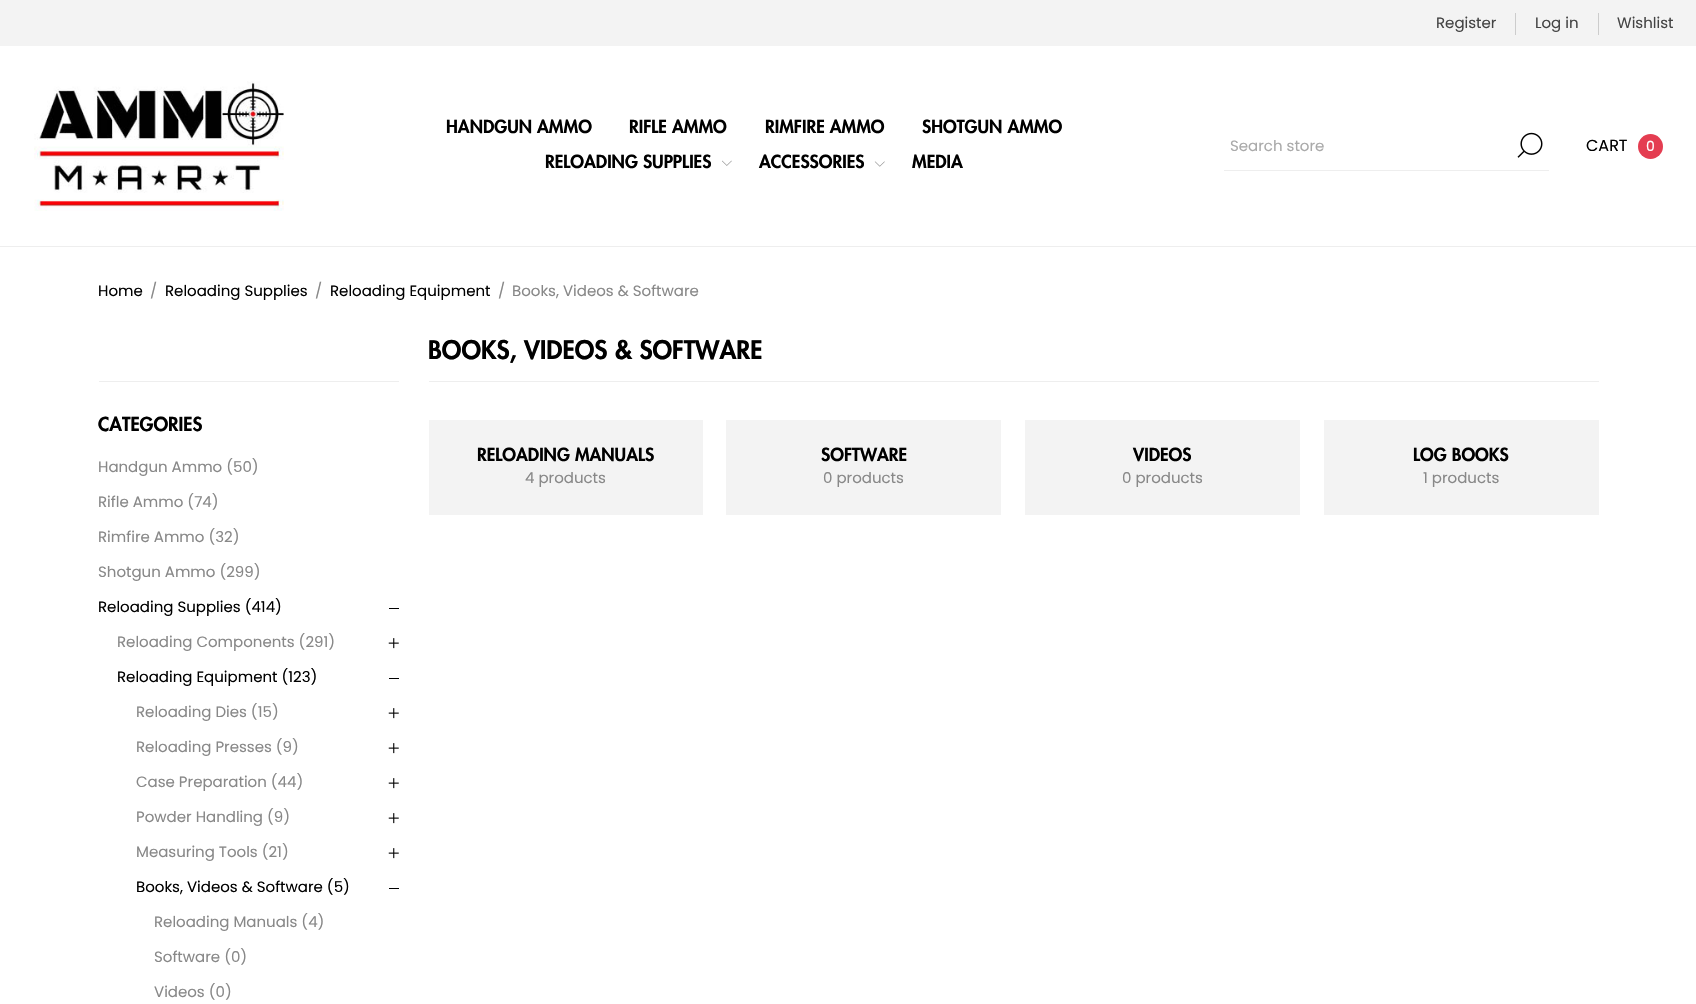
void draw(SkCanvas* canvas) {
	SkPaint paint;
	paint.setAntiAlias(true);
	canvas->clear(0xffffffff);
	paint.setColor(0xfff3f3f3);
	canvas->drawRect(SkRect::MakeXYWH(0, 0, 1696, 46), paint);
	SkFont f1(fontMgr->matchFamilyStyle("Poppins", SkFontStyle::Normal()), 15);
	f1.setSubpixel(true);
	paint.setColor(0xff444444);
	canvas->drawString("Register", 1436, 28, f1, paint);
	paint.setColor(0xffcccccc);
	canvas->drawRect(SkRect::MakeXYWH(1515, 13, 1, 22), paint);
	paint.setColor(0xff444444);
	canvas->drawString("Log in", 1535, 28, f1, paint);
	paint.setColor(0xffcccccc);
	canvas->drawRect(SkRect::MakeXYWH(1598, 13, 1, 22), paint);
	paint.setColor(0xff444444);
	canvas->drawString("Wishlist", 1617, 28, f1, paint);
	paint.setColor(0xffeeeeee);
	canvas->drawRect(SkRect::MakeXYWH(0, 246, 1696, 1), paint);
	canvas->drawImageRect(SkImages::DeferredFromEncodedData(SkData::MakeFromFileName("img1.png")), SkRect::MakeXYWH(34, 81, 250, 130), SkSamplingOptions());
	SkFont f2(fontMgr->matchFamilyStyle("Futura", SkFontStyle(900, SkFontStyle::kNormal_Width, SkFontStyle::kUpright_Slant)), 17.5);
	f2.setSubpixel(true);
	paint.setColor(0xff000000);
	canvas->drawString("HANDGUN AMMO", 446, 133, f2, paint);
	canvas->drawString("RIFLE AMMO", 629, 133, f2, paint);
	canvas->drawString("RIMFIRE AMMO", 765, 133, f2, paint);
	canvas->drawString("SHOTGUN AMMO", 922, 133, f2, paint);
	canvas->drawString("RELOADING SUPPLIES", 545, 168, f2, paint);
	canvas->drawImageRect(SkImages::DeferredFromEncodedData(SkData::MakeFromFileName("img2.png")), SkRect::MakeXYWH(722, 160, 10, 6), SkSamplingOptions());
	canvas->drawString("ACCESSORIES", 759, 168, f2, paint);
	canvas->drawImageRect(SkImages::DeferredFromEncodedData(SkData::MakeFromFileName("img3.png")), SkRect::MakeXYWH(874, 161, 11, 6), SkSamplingOptions());
	canvas->drawString("MEDIA", 912, 168, f2, paint);
	paint.setColor(0xffeeeeee);
	canvas->drawRect(SkRect::MakeXYWH(1224, 170, 325, 1), paint);
	paint.setColor(0xffaaaaaa);
	canvas->drawString("Search store", 1230, 151, f1, paint);
	canvas->drawImageRect(SkImages::DeferredFromEncodedData(SkData::MakeFromFileName("img4.png")), SkRect::MakeXYWH(1517, 132, 26, 26), SkSamplingOptions());
	SkFont f3(fontMgr->matchFamilyStyle("Poppins", SkFontStyle::Normal()), 16);
	f3.setSubpixel(true);
	paint.setColor(0xff000000);
	canvas->drawString("CART", 1586, 151, f3, paint);
	paint.setColor(0xffe43d51);
	canvas->drawCircle(1650.5, 146.5, 12.5, paint);
	SkFont f4(fontMgr->matchFamilyStyle("Poppins", SkFontStyle::Normal()), 14);
	f4.setSubpixel(true);
	paint.setColor(0xffffffff);
	canvas->drawString("0", 1646, 151, f4, paint);
	paint.setColor(0xff000000);
	canvas->drawString("Home", 98, 296, f1, paint);
	paint.setColor(0xff888888);
	canvas->drawString("/", 150, 296, f1, paint);
	paint.setColor(0xff000000);
	canvas->drawString("Reloading Supplies", 165, 296, f1, paint);
	paint.setColor(0xff888888);
	canvas->drawString("/", 315, 296, f1, paint);
	paint.setColor(0xff000000);
	canvas->drawString("Reloading Equipment", 330, 296, f1, paint);
	paint.setColor(0xff888888);
	canvas->drawString("/", 498, 296, f1, paint);
	canvas->drawString("Books, Videos & Software", 512, 296, f1, paint);
	paint.setColor(0xffeeeeee);
	canvas->drawRect(SkRect::MakeXYWH(99, 381, 300, 1), paint);
	SkFont f5(fontMgr->matchFamilyStyle("Futura", SkFontStyle(900, SkFontStyle::kNormal_Width, SkFontStyle::kUpright_Slant)), 18.75);
	f5.setSubpixel(true);
	paint.setColor(0xff000000);
	canvas->drawString("CATEGORIES", 98, 431, f5, paint);
	paint.setColor(0xff888888);
	canvas->drawString("Handgun Ammo (50)", 98, 472, f1, paint);
	canvas->drawString("Rifle Ammo (74)", 98, 507, f1, paint);
	canvas->drawString("Rimfire Ammo (32)", 98, 542, f1, paint);
	canvas->drawString("Shotgun Ammo (299)", 98, 577, f1, paint);
	paint.setColor(0xff000000);
	canvas->drawString("Reloading Supplies (414)", 98, 612, f1, paint);
	canvas->drawRect(SkRect::MakeXYWH(389, 608, 10, 1), paint);
	paint.setColor(0xff888888);
	canvas->drawString("Reloading Components (291)", 117, 647, f1, paint);
	canvas->drawImageRect(SkImages::DeferredFromEncodedData(SkData::MakeFromFileName("img5.png")), SkRect::MakeXYWH(388, 638, 11, 11), SkSamplingOptions());
	paint.setColor(0xff000000);
	canvas->drawString("Reloading Equipment (123)", 117, 682, f1, paint);
	canvas->drawRect(SkRect::MakeXYWH(389, 678, 10, 1), paint);
	paint.setColor(0xff888888);
	canvas->drawString("Reloading Dies (15)", 136, 717, f1, paint);
	canvas->drawImageRect(SkImages::DeferredFromEncodedData(SkData::MakeFromFileName("img5.png")), SkRect::MakeXYWH(388, 708, 11, 11), SkSamplingOptions());
	canvas->drawString("Reloading Presses (9)", 136, 752, f1, paint);
	canvas->drawImageRect(SkImages::DeferredFromEncodedData(SkData::MakeFromFileName("img5.png")), SkRect::MakeXYWH(388, 743, 11, 11), SkSamplingOptions());
	canvas->drawString("Case Preparation (44)", 136, 787, f1, paint);
	canvas->drawImageRect(SkImages::DeferredFromEncodedData(SkData::MakeFromFileName("img5.png")), SkRect::MakeXYWH(388, 778, 11, 11), SkSamplingOptions());
	canvas->drawString("Powder Handling (9)", 136, 822, f1, paint);
	canvas->drawImageRect(SkImages::DeferredFromEncodedData(SkData::MakeFromFileName("img5.png")), SkRect::MakeXYWH(388, 813, 11, 11), SkSamplingOptions());
	canvas->drawString("Measuring Tools (21)", 136, 857, f1, paint);
	canvas->drawImageRect(SkImages::DeferredFromEncodedData(SkData::MakeFromFileName("img5.png")), SkRect::MakeXYWH(388, 848, 11, 11), SkSamplingOptions());
	paint.setColor(0xff000000);
	canvas->drawString("Books, Videos & Software (5)", 136, 892, f1, paint);
	canvas->drawRect(SkRect::MakeXYWH(389, 888, 10, 1), paint);
	paint.setColor(0xff888888);
	canvas->drawString("Reloading Manuals (4)", 154, 927, f1, paint);
	canvas->drawString("Software (0)", 154, 962, f1, paint);
	canvas->drawString("Videos (0)", 154, 997, f1, paint);
	paint.setColor(0xffeeeeee);
	canvas->drawRect(SkRect::MakeXYWH(429, 381, 1170, 1), paint);
	SkFont f6(fontMgr->matchFamilyStyle("Futura", SkFontStyle(900, SkFontStyle::kNormal_Width, SkFontStyle::kUpright_Slant)), 25);
	f6.setSubpixel(true);
	paint.setColor(0xff000000);
	canvas->drawString("BOOKS, VIDEOS & SOFTWARE", 428, 359, f6, paint);
	paint.setColor(0xfff3f3f3);
	canvas->drawRect(SkRect::MakeXYWH(429, 420, 274, 95), paint);
	paint.setColor(0xff000000);
	canvas->drawString("RELOADING MANUALS", 477, 461, f2, paint);
	paint.setColor(0xff888888);
	canvas->drawString("4 products", 525, 483, f1, paint);
	paint.setColor(0xfff3f3f3);
	canvas->drawRect(SkRect::MakeXYWH(726, 420, 275, 95), paint);
	paint.setColor(0xff000000);
	canvas->drawString("SOFTWARE", 821, 461, f2, paint);
	paint.setColor(0xff888888);
	canvas->drawString("0 products", 823, 483, f1, paint);
	paint.setColor(0xfff3f3f3);
	canvas->drawRect(SkRect::MakeXYWH(1025, 420, 275, 95), paint);
	paint.setColor(0xff000000);
	canvas->drawString("VIDEOS", 1133, 461, f2, paint);
	paint.setColor(0xff888888);
	canvas->drawString("0 products", 1122, 483, f1, paint);
	paint.setColor(0xfff3f3f3);
	canvas->drawRect(SkRect::MakeXYWH(1324, 420, 275, 95), paint);
	paint.setColor(0xff000000);
	canvas->drawString("LOG BOOKS", 1413, 461, f2, paint);
	paint.setColor(0xff888888);
	canvas->drawString("1 products", 1423, 483, f1, paint);
}
